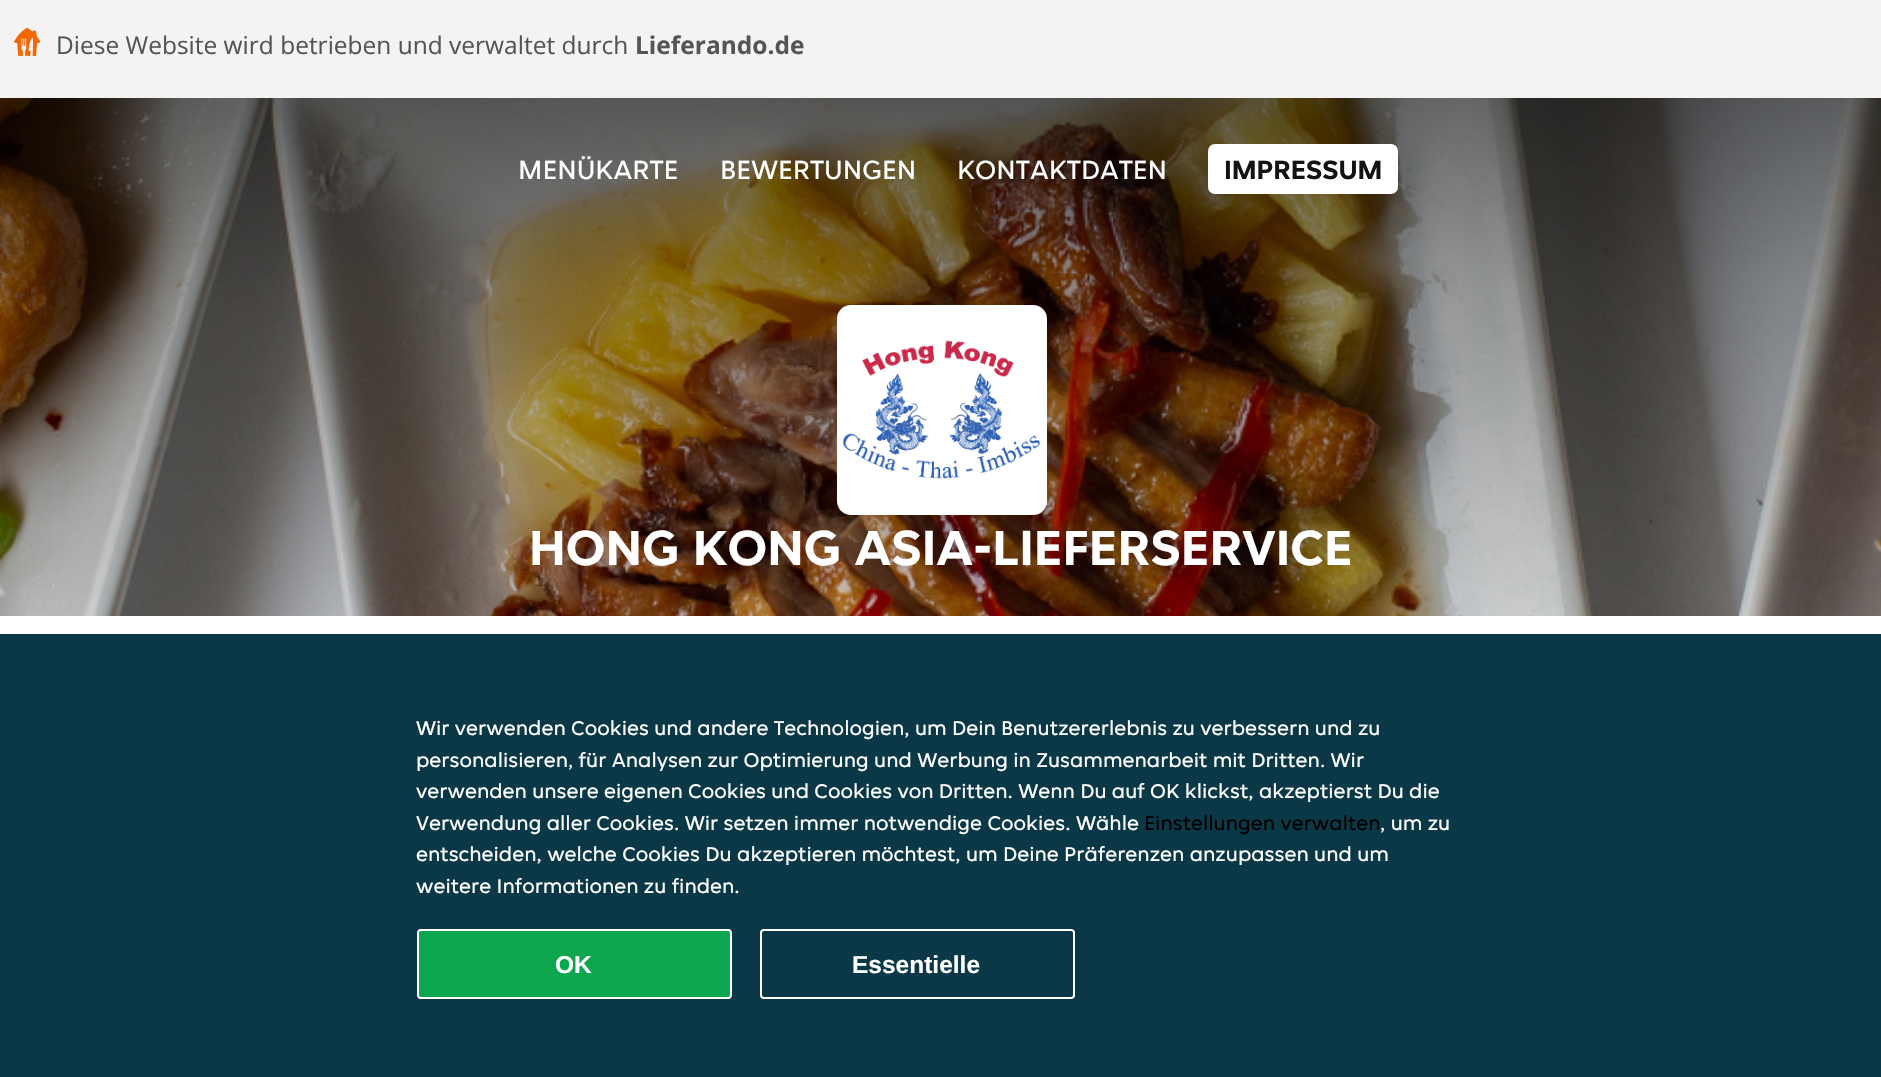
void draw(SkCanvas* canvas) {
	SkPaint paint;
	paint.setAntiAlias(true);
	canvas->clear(0xffffffff);
	paint.setColor(0xfff5f3f1);
	canvas->drawRect(SkRect::MakeXYWH(0, 0, 1881, 98), paint);
	canvas->drawImageRect(SkImages::DeferredFromEncodedData(SkData::MakeFromFileName("img1.png")), SkRect::MakeXYWH(14, 28, 27, 28), SkSamplingOptions());
	SkFont f1(fontMgr->matchFamilyStyle("Open Sans", SkFontStyle::Normal()), 24.5);
	f1.setSubpixel(true);
	paint.setColor(0xff555555);
	canvas->drawString("Diese Website wird betrieben und verwaltet durch", 56, 54, f1, paint);
	SkFont f2(fontMgr->matchFamilyStyle("Open Sans", SkFontStyle::Bold()), 24.5);
	f2.setSubpixel(true);
	canvas->drawString("Lieferando.de", 635, 54, f2, paint);
	canvas->drawImageRect(SkImages::DeferredFromEncodedData(SkData::MakeFromFileName("img2.png")), SkRect::MakeXYWH(0, 98, 1881, 518), SkSamplingOptions());
	{
		const SkColor colors[] = {0xb3000000, 0x66000000, 0x33000000, 0x00000000};
		const float stops[] = {0, 0.33, 0.67, 1};
		const SkPoint ends[] = {{941, 0}, {941, 875}};
		paint.setShader(SkGradientShader::MakeLinear(ends, colors, stops, 4, SkTileMode::kClamp));
		paint.setAlpha(255);
	}
	canvas->drawRect(SkRect::MakeXYWH(0, 98, 1881, 518), paint);
	SkFont f3(fontMgr->matchFamilyStyle("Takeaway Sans", SkFontStyle::Normal()), 28);
	f3.setSubpixel(true);
	paint.setShader(nullptr);
	paint.setColor(0xffffffff);
	canvas->drawString("MENÜKARTE", 518, 179, f3, paint);
	canvas->drawString("BEWERTUNGEN", 720, 179, f3, paint);
	canvas->drawString("KONTAKTDATEN", 957, 179, f3, paint);
	canvas->drawRoundRect(SkRect::MakeXYWH(1208, 144, 190, 50), 7, 7, paint);
	SkFont f4(fontMgr->matchFamilyStyle("Takeaway Sans", SkFontStyle::Bold()), 28);
	f4.setSubpixel(true);
	paint.setColor(0xff121212);
	canvas->drawString("IMPRESSUM", 1224, 179, f4, paint);
	paint.setColor(0xffffffff);
	canvas->drawRoundRect(SkRect::MakeXYWH(837, 305, 210, 210), 14, 14, paint);
	canvas->drawImageRect(SkImages::DeferredFromEncodedData(SkData::MakeFromFileName("img3.png")), SkRect::MakeXYWH(842, 340, 199, 139), SkSamplingOptions());
	SkFont f5(fontMgr->matchFamilyStyle("Takeaway Sans", SkFontStyle::Bold()), 52.5);
	f5.setSubpixel(true);
	canvas->drawString("HONG KONG ASIA-LIEFERSERVICE", 529, 565, f5, paint);
	paint.setColor(0xff0a3847);
	canvas->drawRect(SkRect::MakeXYWH(0, 634, 1881, 443), paint);
	SkFont f6(fontMgr->matchFamilyStyle("Takeaway Sans", SkFontStyle::Normal()), 21);
	f6.setSubpixel(true);
	paint.setColor(0xffffffff);
	canvas->drawString("Wir verwenden Cookies und andere Technologien, um Dein Benutzererlebnis zu verbessern und zu", 416, 735, f6, paint);
	canvas->drawString("personalisieren, für Analysen zur Optimierung und Werbung in Zusammenarbeit mit Dritten. Wir", 416, 767, f6, paint);
	canvas->drawString("verwenden unsere eigenen Cookies und Cookies von Dritten. Wenn Du auf OK klickst, akzeptierst Du die", 416, 798, f6, paint);
	canvas->drawString("Verwendung aller Cookies. Wir setzen immer notwendige Cookies. Wähle", 416, 830, f6, paint);
	paint.setColor(0xff000000);
	canvas->drawString("Einstellungen verwalten", 1144, 830, f6, paint);
	paint.setColor(0xffffffff);
	canvas->drawString(", um zu", 1380, 830, f6, paint);
	canvas->drawString("entscheiden, welche Cookies Du akzeptieren möchtest, um Deine Präferenzen anzupassen und um", 416, 861, f6, paint);
	canvas->drawString("weitere Informationen zu finden.", 416, 893, f6, paint);
	paint.setColor(0xff0ca64f);
	canvas->drawRoundRect(SkRect::MakeXYWH(418, 930, 313, 68), 3, 3, paint);
	paint.setStroke(true);
	paint.setStrokeWidth(2);
	paint.setColor(0xffffffff);
	canvas->drawRoundRect(SkRect::MakeXYWH(418, 930, 313, 68), 3, 3, paint);
	SkFont f7(fontMgr->matchFamilyStyle("Liberation Sans", SkFontStyle::Bold()), 24.5);
	f7.setSubpixel(true);
	paint.setStroke(false);
	canvas->drawString("OK", 555, 973, f7, paint);
	paint.setStroke(true);
	canvas->drawRoundRect(SkRect::MakeXYWH(761, 930, 313, 68), 3, 3, paint);
	paint.setStroke(false);
	canvas->drawString("Essentielle", 852, 973, f7, paint);
}
